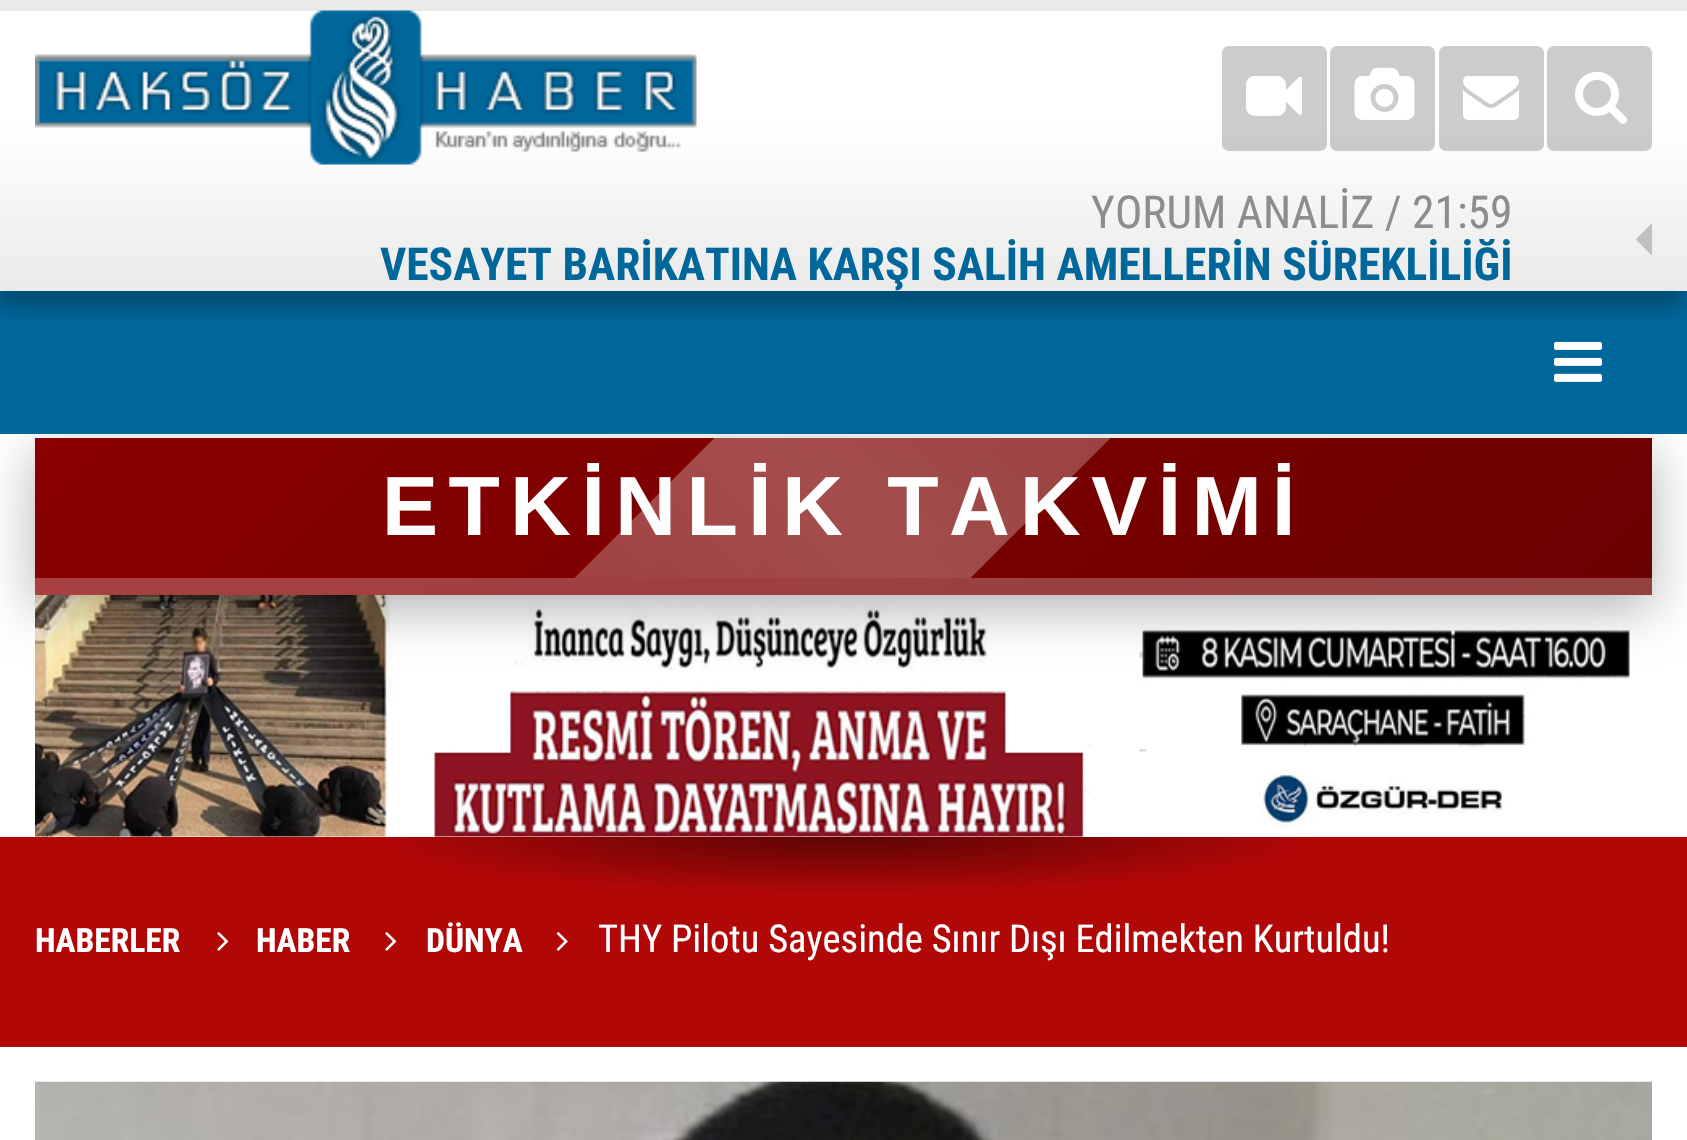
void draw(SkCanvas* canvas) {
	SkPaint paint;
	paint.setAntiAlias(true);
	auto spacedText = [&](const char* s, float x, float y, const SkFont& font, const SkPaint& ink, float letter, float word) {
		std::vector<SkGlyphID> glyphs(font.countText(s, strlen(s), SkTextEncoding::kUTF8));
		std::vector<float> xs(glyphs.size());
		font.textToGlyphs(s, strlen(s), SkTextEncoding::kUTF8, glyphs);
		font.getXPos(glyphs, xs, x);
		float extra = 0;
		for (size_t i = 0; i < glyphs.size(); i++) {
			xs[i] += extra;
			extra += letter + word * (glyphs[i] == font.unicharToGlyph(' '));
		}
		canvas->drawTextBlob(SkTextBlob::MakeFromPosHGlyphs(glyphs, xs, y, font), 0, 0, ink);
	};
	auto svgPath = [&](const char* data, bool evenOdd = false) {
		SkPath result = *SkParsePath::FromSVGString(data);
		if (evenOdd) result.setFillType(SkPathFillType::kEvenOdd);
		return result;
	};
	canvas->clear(0xffffffff);
	canvas->drawImageRect(SkImages::DeferredFromEncodedData(SkData::MakeFromFileName("img8.png")), SkRect::MakeXYWH(35, 595, 1595, 242), SkSamplingOptions());
	paint.setColor(0x4d000000);
	paint.setMaskFilter(SkMaskFilter::MakeBlur(kNormal_SkBlurStyle, 26));
	canvas->drawRect(SkRect::MakeXYWH(35, 452, 1617, 157), paint);
	paint.setMaskFilter(nullptr);
	paint.setColor(0xff00679b);
	canvas->drawRect(SkRect::MakeXYWH(0, 291, 1687, 143), paint);
	paint.setColor(0x40000000);
	paint.setMaskFilter(SkMaskFilter::MakeBlur(kNormal_SkBlurStyle, 9));
	canvas->drawRect(SkRect::MakeXYWH(-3, 18, 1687, 290), paint);
	paint.setMaskFilter(nullptr);
	{
		const SkColor colors[] = {0xffffffff, 0xffeaeaea};
		const float stops[] = {0.4, 1};
		const SkPoint ends[] = {{844, -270}, {844, 11}};
		paint.setShader(SkGradientShader::MakeLinear(ends, colors, stops, 2, SkTileMode::kClamp));
		paint.setAlpha(255);
	}
	canvas->drawRect(SkRect::MakeXYWH(0, 0, 1687, 11), paint);
	{
		const SkColor colors[] = {0xffffffff, 0xffeaeaea};
		const float stops[] = {0.4, 1};
		const SkPoint ends[] = {{844, 10}, {844, 291}};
		paint.setShader(SkGradientShader::MakeLinear(ends, colors, stops, 2, SkTileMode::kClamp));
		paint.setAlpha(255);
	}
	canvas->drawRect(SkRect::MakeXYWH(0, 11, 1687, 280), paint);
	canvas->drawImageRect(SkImages::DeferredFromEncodedData(SkData::MakeFromFileName("img1.png")), SkRect::MakeXYWH(35, 10, 662, 155), SkSamplingOptions());
	paint.setShader(nullptr);
	paint.setColor(0x33000000);
	canvas->drawRoundRect(SkRect::MakeXYWH(1222, 46, 105, 105), 7, 7, paint);
	canvas->drawImageRect(SkImages::DeferredFromEncodedData(SkData::MakeFromFileName("img2.png")), SkRect::MakeXYWH(1246, 76, 56, 40), SkSamplingOptions());
	canvas->drawRoundRect(SkRect::MakeXYWH(1330, 46, 105, 105), 7, 7, paint);
	canvas->drawImageRect(SkImages::DeferredFromEncodedData(SkData::MakeFromFileName("img3.png")), SkRect::MakeXYWH(1354, 67, 61, 53), SkSamplingOptions());
	canvas->drawRoundRect(SkRect::MakeXYWH(1439, 46, 105, 105), 7, 7, paint);
	canvas->drawImageRect(SkImages::DeferredFromEncodedData(SkData::MakeFromFileName("img4.png")), SkRect::MakeXYWH(1463, 76, 56, 44), SkSamplingOptions());
	canvas->drawRoundRect(SkRect::MakeXYWH(1547, 46, 105, 105), 7, 7, paint);
	canvas->drawImageRect(SkImages::DeferredFromEncodedData(SkData::MakeFromFileName("img5.png")), SkRect::MakeXYWH(1575, 71, 52, 53), SkSamplingOptions());
	SkFont f1(fontMgr->matchFamilyStyle("Roboto Condensed", SkFontStyle::Normal()), 45.5);
	f1.setSubpixel(true);
	paint.setColor(0xff8d8d8d);
	canvas->drawString("YORUM ANALİZ / 21:59", 1091, 228, f1, paint);
	SkFont f2(fontMgr->matchFamilyStyle("Roboto Condensed", SkFontStyle::Bold()), 45.5);
	f2.setSubpixel(true);
	paint.setColor(0xff00679b);
	canvas->drawString("VESAYET BARİKATINA KARŞI SALİH AMELLERİN SÜREKLİLİĞİ", 380, 280, f2, paint);
	canvas->drawImageRect(SkImages::DeferredFromEncodedData(SkData::MakeFromFileName("img6.png")), SkRect::MakeXYWH(1636, 223, 16, 33), SkSamplingOptions());
	canvas->drawImageRect(SkImages::DeferredFromEncodedData(SkData::MakeFromFileName("img7.png")), SkRect::MakeXYWH(1554, 341, 48, 41), SkSamplingOptions());
	{
		const SkColor colors[] = {0xff8b0000, 0xff6b0000};
		const float stops[] = {0, 1};
		const SkPoint ends[] = {{404, 68}, {1283, 947}};
		paint.setShader(SkGradientShader::MakeLinear(ends, colors, stops, 2, SkTileMode::kClamp));
		paint.setAlpha(255);
	}
	canvas->drawRect(SkRect::MakeXYWH(35, 438, 1617, 140), paint);
	{
		const SkColor colors[] = {0xffa84040, 0xff904040};
		const float stops[] = {0, 1};
		const SkPoint ends[] = {{404, 208}, {1283, 1087}};
		paint.setShader(SkGradientShader::MakeLinear(ends, colors, stops, 2, SkTileMode::kClamp));
		paint.setAlpha(255);
	}
	canvas->drawRect(SkRect::MakeXYWH(35, 578, 1617, 17), paint);
	SkFont f3(fontMgr->matchFamilyStyle("Liberation Sans", SkFontStyle::Bold()), 84);
	f3.setSubpixel(true);
	paint.setShader(nullptr);
	paint.setColor(0xffffffff);
	spacedText("ETKİNLİK TAKVİMİ", 382, 535, f3, paint, 10.5, 0);
	canvas->save();
	canvas->clipRect(SkRect::MakeXYWH(35, 438, 1617, 140));
	{
		const SkColor colors[] = {0x00ffffff, 0x4dffffff, 0x00ffffff};
		const float stops[] = {0, 0.5, 1};
		const SkPoint ends[] = {{-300, 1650}, {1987, -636}};
		paint.setShader(SkGradientShader::MakeLinear(ends, colors, stops, 3, SkTileMode::kClamp));
		paint.setAlpha(255);
	}
	canvas->drawPath(svgPath("M-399 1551L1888-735L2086-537L-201 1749Z"), paint);
	canvas->restore();
	paint.setShader(nullptr);
	paint.setColor(0xffb10707);
	canvas->drawRect(SkRect::MakeXYWH(0, 837, 1687, 210), paint);
	{
		const SkColor colors[] = {0x80000000, 0x00000000};
		const float stops[] = {0, 0.4};
		SkMatrix m = SkMatrix::Translate(844, 833).preScale(1193, 153);
		paint.setShader(SkGradientShader::MakeRadial({0, 0}, 1, colors, stops, 2, SkTileMode::kClamp, 0, &m));
		paint.setAlpha(255);
	}
	canvas->drawRect(SkRect::MakeXYWH(389, 837, 910, 55), paint);
	SkFont f4(fontMgr->matchFamilyStyle("Roboto Condensed", SkFontStyle::Bold()), 33.5);
	f4.setSubpixel(true);
	paint.setShader(nullptr);
	paint.setColor(0xffffffff);
	canvas->drawString("HABERLER", 35, 952, f4, paint);
	canvas->drawImageRect(SkImages::DeferredFromEncodedData(SkData::MakeFromFileName("img9.png")), SkRect::MakeXYWH(217, 932, 12, 19), SkSamplingOptions());
	canvas->drawString("HABER", 256, 952, f4, paint);
	canvas->drawImageRect(SkImages::DeferredFromEncodedData(SkData::MakeFromFileName("img9.png")), SkRect::MakeXYWH(385, 932, 12, 19), SkSamplingOptions());
	canvas->drawString("DÜNYA", 426, 952, f4, paint);
	canvas->drawImageRect(SkImages::DeferredFromEncodedData(SkData::MakeFromFileName("img10.png")), SkRect::MakeXYWH(556, 932, 12, 19), SkSamplingOptions());
	SkFont f5(fontMgr->matchFamilyStyle("Roboto Condensed", SkFontStyle::Normal()), 38.5);
	f5.setSubpixel(true);
	canvas->drawString("THY Pilotu Sayesinde Sınır Dışı Edilmekten Kurtuldu!", 598, 952, f5, paint);
	canvas->drawImageRect(SkImages::DeferredFromEncodedData(SkData::MakeFromFileName("img11.png")), SkRect::MakeXYWH(35, 1081, 1617, 59), SkSamplingOptions());
}
